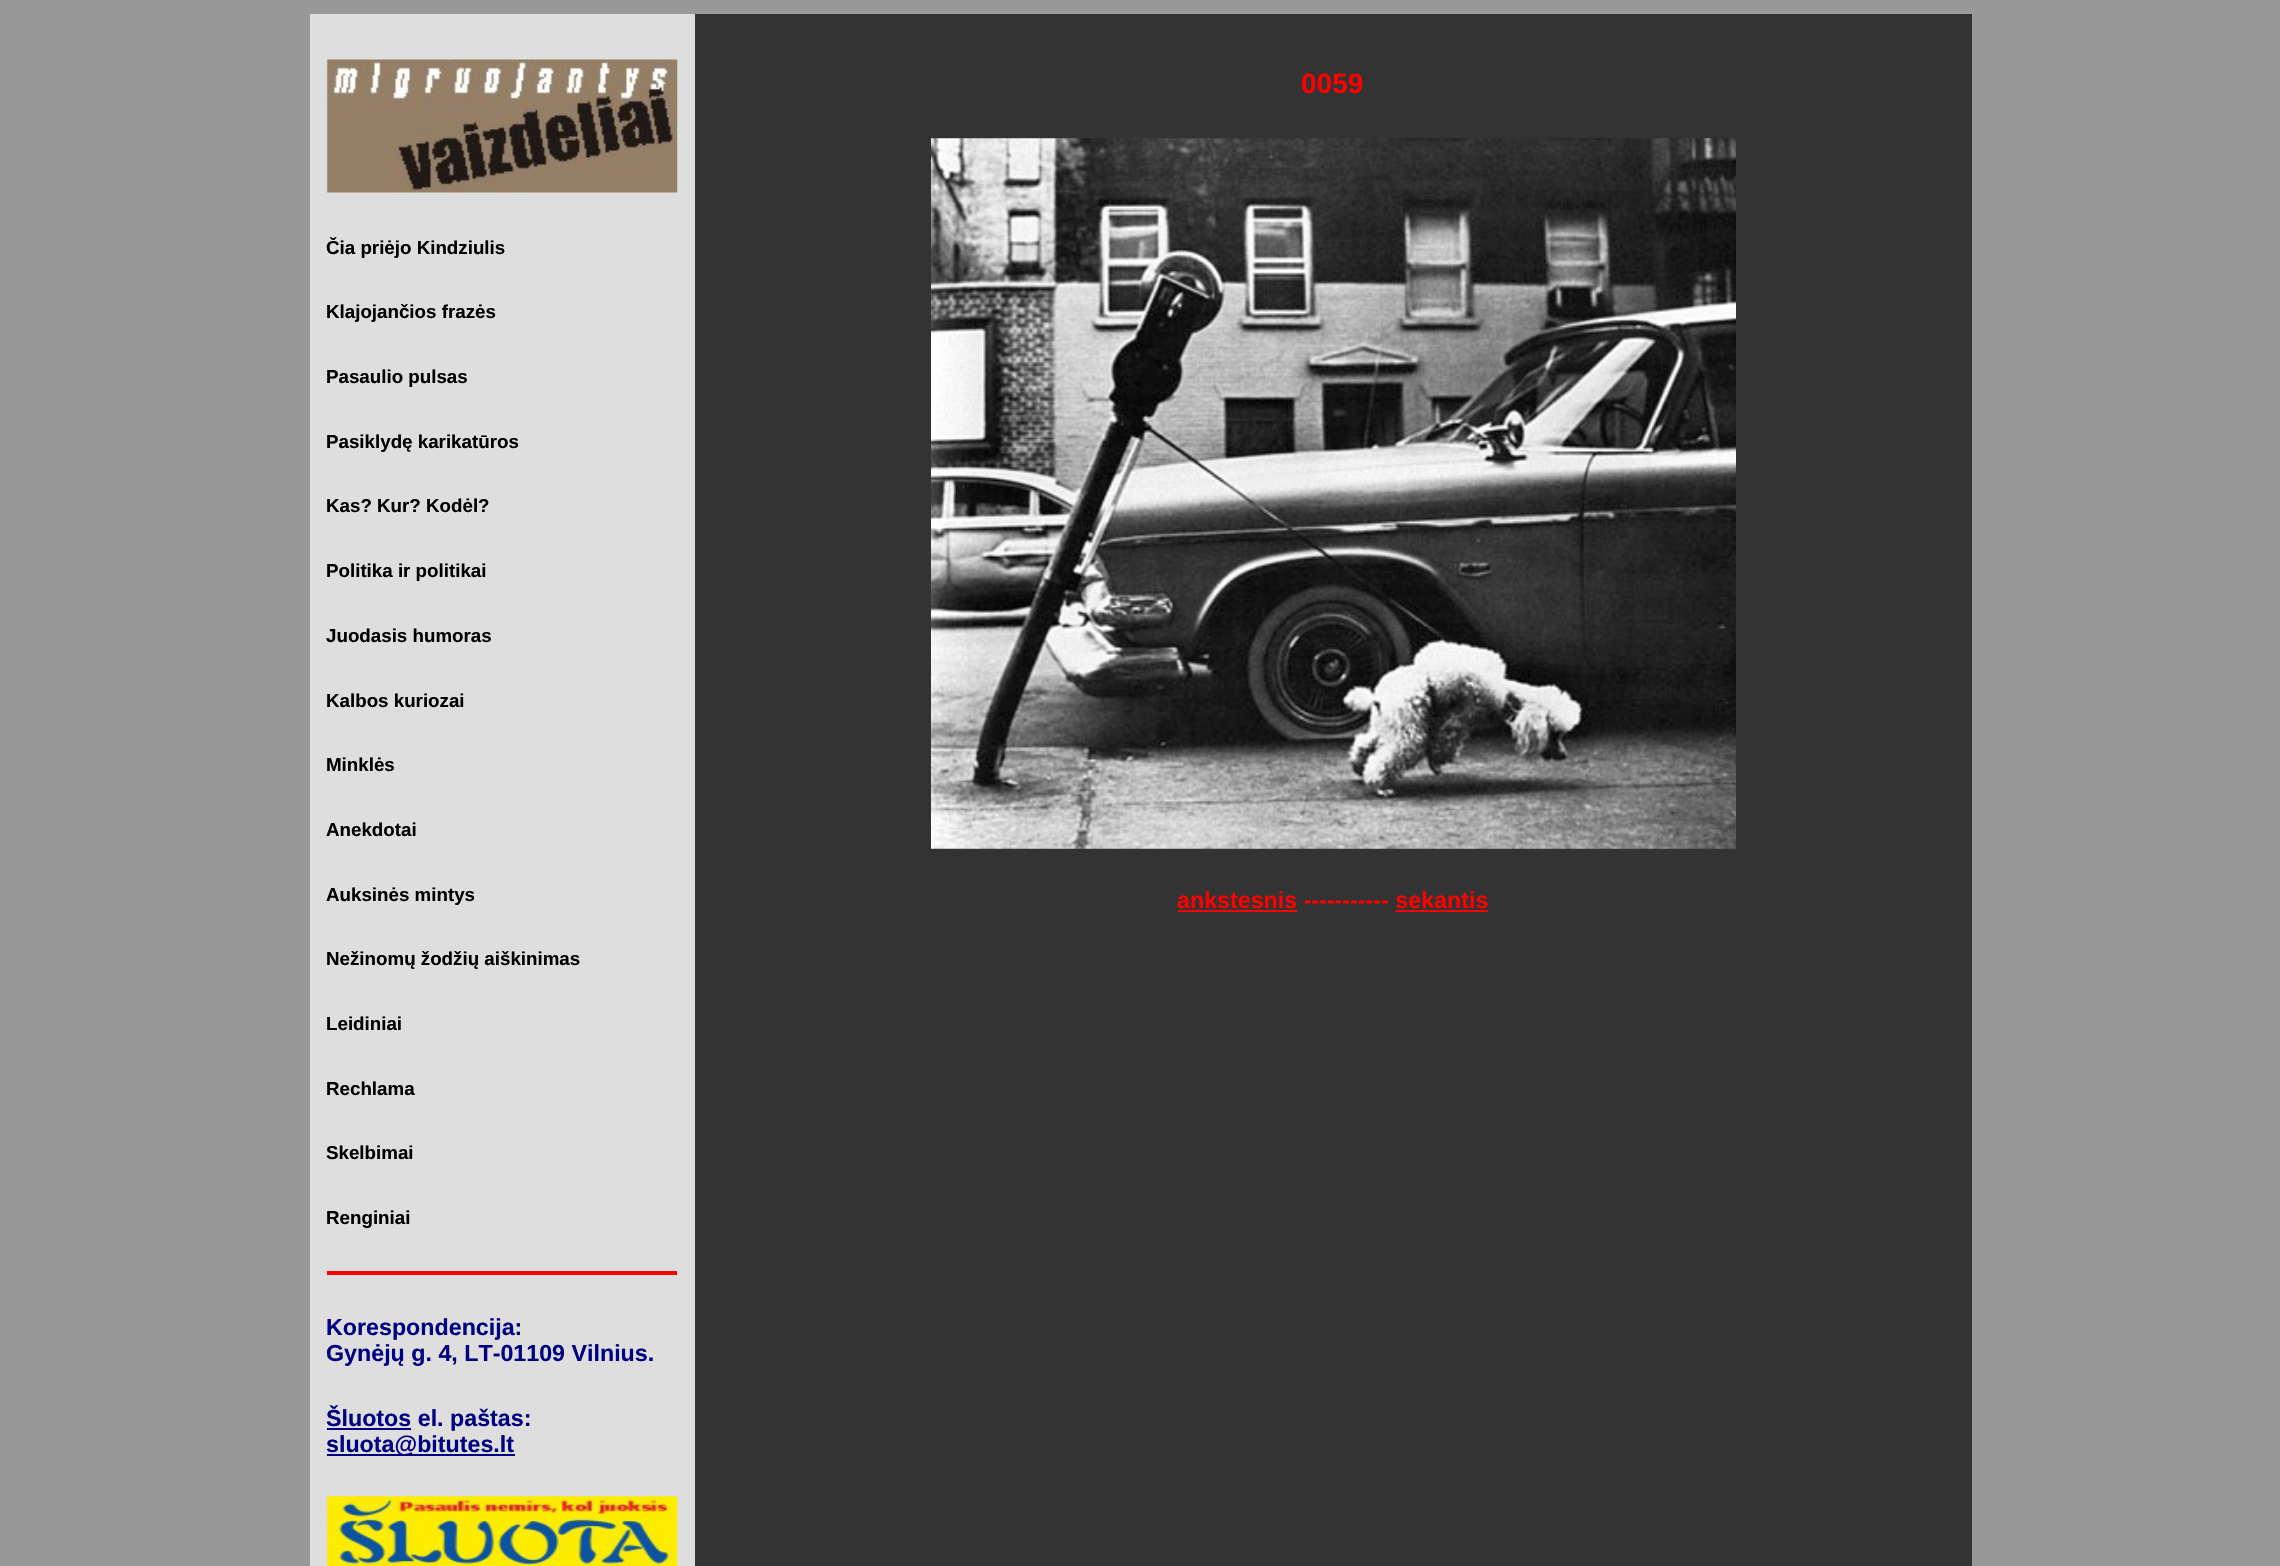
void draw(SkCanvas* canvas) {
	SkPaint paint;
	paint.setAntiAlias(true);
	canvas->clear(0xff999999);
	paint.setColor(0xffdedede);
	canvas->drawRect(SkRect::MakeXYWH(310, 14, 385, 1552), paint);
	canvas->drawImageRect(SkImages::DeferredFromEncodedData(SkData::MakeFromFileName("img1.png")), SkRect::MakeXYWH(327, 59, 351, 134), SkSamplingOptions());
	SkFont f1(fontMgr->matchFamilyStyle("Liberation Sans", SkFontStyle::Bold()), 18.75);
	f1.setSubpixel(true);
	paint.setColor(0xff000000);
	canvas->drawString("Čia priėjo Kindziulis", 326, 254, f1, paint);
	canvas->drawString("Klajojančios frazės", 326, 318, f1, paint);
	canvas->drawString("Pasaulio pulsas", 326, 383, f1, paint);
	canvas->drawString("Pasiklydę karikatūros", 326, 448, f1, paint);
	canvas->drawString("Kas? Kur? Kodėl?", 326, 512, f1, paint);
	canvas->drawString("Politika ir politikai", 326, 577, f1, paint);
	canvas->drawString("Juodasis humoras", 326, 642, f1, paint);
	canvas->drawString("Kalbos kuriozai", 326, 707, f1, paint);
	canvas->drawString("Minklės", 326, 771, f1, paint);
	canvas->drawString("Anekdotai", 326, 836, f1, paint);
	canvas->drawString("Auksinės mintys", 326, 901, f1, paint);
	canvas->drawString("Nežinomų žodžių aiškinimas", 326, 965, f1, paint);
	canvas->drawString("Leidiniai", 326, 1030, f1, paint);
	canvas->drawString("Rechlama", 326, 1095, f1, paint);
	canvas->drawString("Skelbimai", 326, 1159, f1, paint);
	canvas->drawString("Renginiai", 326, 1224, f1, paint);
	paint.setColor(0xffff0000);
	canvas->drawRect(SkRect::MakeXYWH(327, 1271, 350, 4), paint);
	SkFont f2(fontMgr->matchFamilyStyle("Liberation Sans", SkFontStyle::Bold()), 23.25);
	f2.setSubpixel(true);
	paint.setColor(0xff000080);
	canvas->drawString("Korespondencija:", 326, 1335, f2, paint);
	canvas->drawString("Gynėjų g. 4, LT-01109 Vilnius.", 326, 1361, f2, paint);
	canvas->drawRect(SkRect::MakeXYWH(327, 1428, 84, 2), paint);
	canvas->drawString("Šluotos el. paštas:", 326, 1426, f2, paint);
	canvas->drawRect(SkRect::MakeXYWH(327, 1454, 188, 2), paint);
	canvas->drawString("sluota@bitutes.lt", 326, 1452, f2, paint);
	canvas->drawImageRect(SkImages::DeferredFromEncodedData(SkData::MakeFromFileName("img2.png")), SkRect::MakeXYWH(327, 1496, 351, 70), SkSamplingOptions());
	paint.setColor(0xff333333);
	canvas->drawRect(SkRect::MakeXYWH(695, 14, 1277, 1552), paint);
	SkFont f3(fontMgr->matchFamilyStyle("Liberation Sans", SkFontStyle::Bold()), 28);
	f3.setSubpixel(true);
	paint.setColor(0xffff0000);
	canvas->drawString("0059", 1301, 93, f3, paint);
	canvas->drawImageRect(SkImages::DeferredFromEncodedData(SkData::MakeFromFileName("img3.png")), SkRect::MakeXYWH(931, 138, 805, 711), SkSamplingOptions());
	canvas->drawString("ankstesnis ----------- sekantis", 1177, 908, f2, paint);
	canvas->drawRect(SkRect::MakeXYWH(1178, 910, 119, 2), paint);
	canvas->drawRect(SkRect::MakeXYWH(1395, 910, 93, 2), paint);
}
